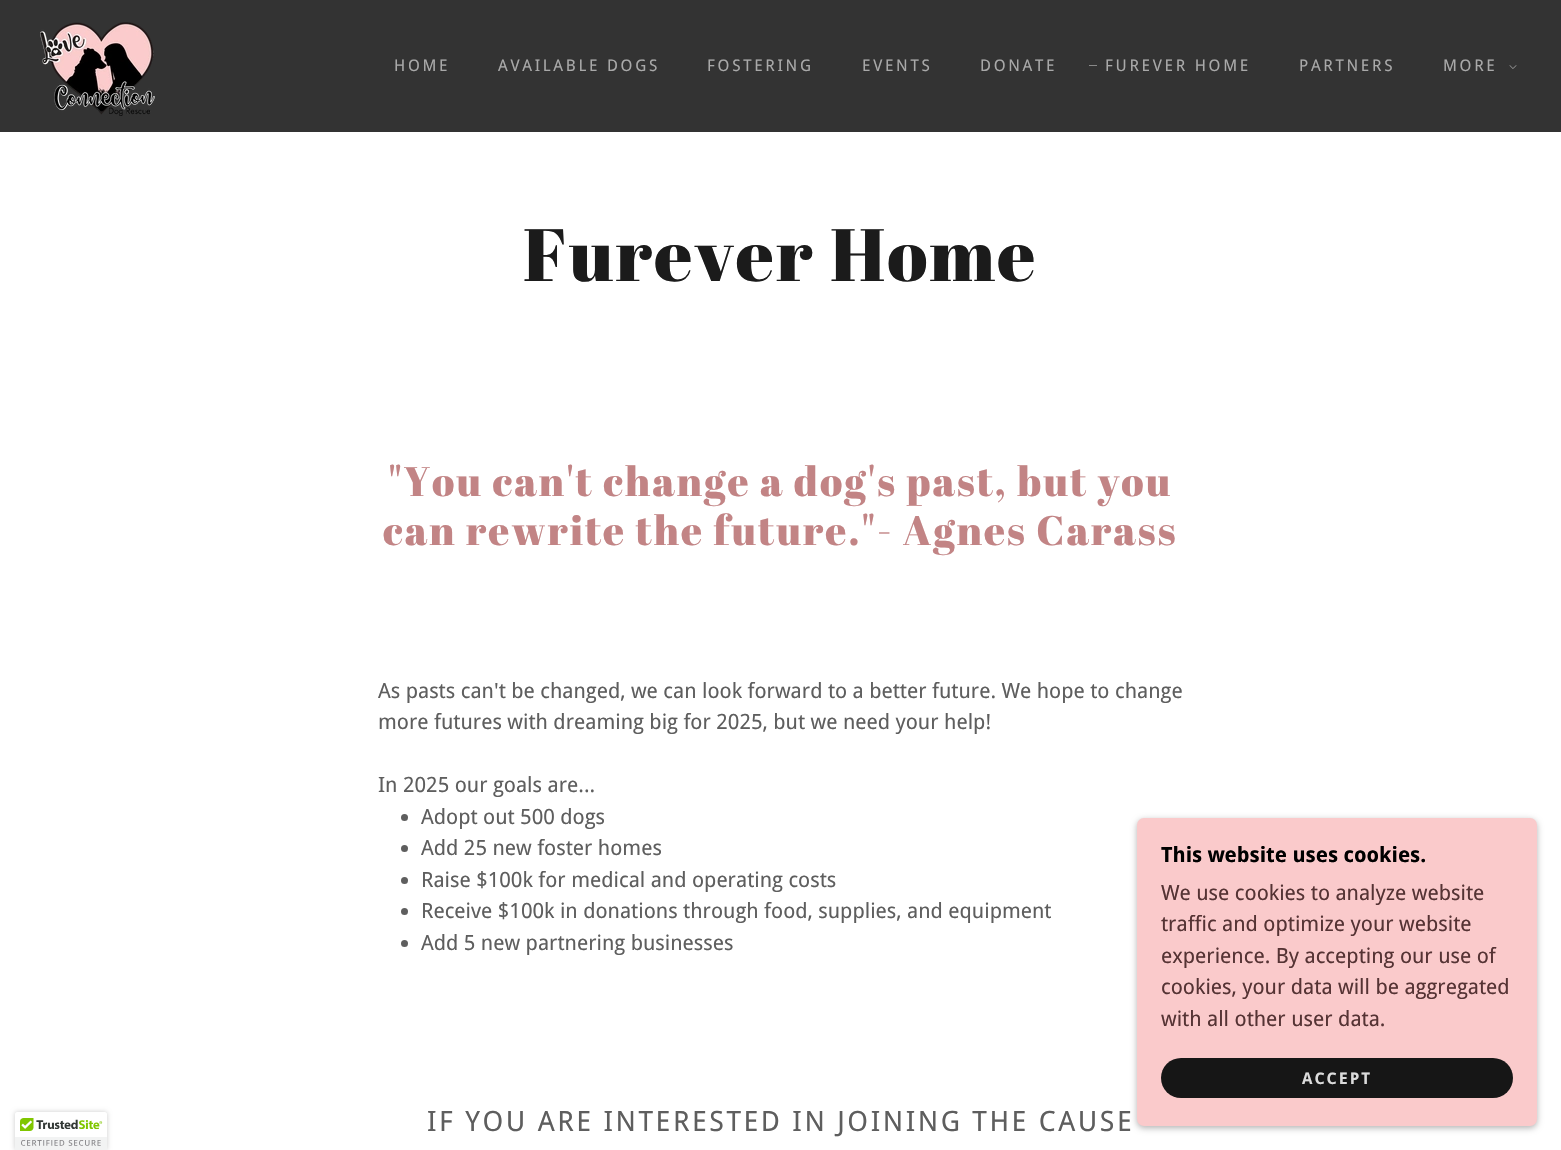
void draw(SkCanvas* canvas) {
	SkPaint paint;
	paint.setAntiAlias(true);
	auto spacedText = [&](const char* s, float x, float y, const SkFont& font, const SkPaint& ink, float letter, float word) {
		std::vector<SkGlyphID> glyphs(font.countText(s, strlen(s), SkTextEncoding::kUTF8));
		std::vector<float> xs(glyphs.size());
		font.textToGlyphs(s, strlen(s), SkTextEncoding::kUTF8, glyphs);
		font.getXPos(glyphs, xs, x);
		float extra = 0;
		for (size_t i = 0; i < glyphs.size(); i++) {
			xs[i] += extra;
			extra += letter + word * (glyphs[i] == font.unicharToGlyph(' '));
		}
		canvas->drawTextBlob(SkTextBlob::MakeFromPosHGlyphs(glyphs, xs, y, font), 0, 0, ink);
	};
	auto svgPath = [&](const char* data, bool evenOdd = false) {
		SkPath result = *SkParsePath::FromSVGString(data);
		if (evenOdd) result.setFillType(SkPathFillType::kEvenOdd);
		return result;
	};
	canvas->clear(0xffffffff);
	paint.setColor(0x33000000);
	paint.setMaskFilter(SkMaskFilter::MakeBlur(kNormal_SkBlurStyle, 2.5));
	canvas->drawRoundRect(SkRect::MakeXYWH(15, 1112, 92, 38), 2, 2, paint);
	paint.setMaskFilter(nullptr);
	paint.setColor(0xffffffff);
	canvas->drawPath(svgPath("M17 1112H105C106 1112 107 1113 107 1114V1150H15V1114C15 1113 16 1112 17 1112Z"), paint);
	canvas->drawImageRect(SkImages::DeferredFromEncodedData(SkData::MakeFromFileName("img1.png")), SkRect::MakeXYWH(15, 1118, 92, 32), SkSamplingOptions());
	paint.setColor(0xff333333);
	canvas->drawRect(SkRect::MakeXYWH(0, 0, 1561, 132), paint);
	canvas->drawImageRect(SkImages::DeferredFromEncodedData(SkData::MakeFromFileName("img2.png")), SkRect::MakeXYWH(40, 22, 115, 94), SkSamplingOptions());
	SkFont f1(fontMgr->matchFamilyStyle("Droid Sans", SkFontStyle::Normal()), 16);
	f1.setSubpixel(true);
	paint.setColor(0xffa9a9a9);
	spacedText("HOME", 394, 71, f1, paint, 2.7, 0);
	spacedText("AVAILABLE DOGS", 498, 71, f1, paint, 2.7, 0);
	spacedText("FOSTERING", 707, 71, f1, paint, 2.7, 0);
	spacedText("EVENTS", 862, 71, f1, paint, 2.7, 0);
	spacedText("DONATE", 980, 71, f1, paint, 2.7, 0);
	paint.setColor(0xff898989);
	canvas->drawRect(SkRect::MakeXYWH(1089, 65, 8, 1), paint);
	paint.setColor(0xffa9a9a9);
	spacedText("FUREVER HOME", 1105, 71, f1, paint, 2.7, 0);
	spacedText("PARTNERS", 1299, 71, f1, paint, 2.7, 0);
	spacedText("MORE", 1443, 71, f1, paint, 2.7, 0);
	canvas->drawImageRect(SkImages::DeferredFromEncodedData(SkData::MakeFromFileName("img3.png")), SkRect::MakeXYWH(1509, 65, 8, 4), SkSamplingOptions());
	SkFont f2(fontMgr->matchFamilyStyle("Abril Fatface", SkFontStyle::Normal()), 74);
	f2.setSubpixel(true);
	paint.setColor(0xff1b1b1b);
	spacedText("Furever Home", 523, 281, f2, paint, 2, 0);
	SkFont f3(fontMgr->matchFamilyStyle("Abril Fatface", SkFontStyle::Normal()), 41);
	f3.setSubpixel(true);
	paint.setColor(0xffc28485);
	spacedText("\"You can't change a dog's past, but you", 388, 496, f3, paint, 2, 0);
	spacedText("can rewrite the future.\"- Agnes Carass", 383, 545, f3, paint, 2, 0);
	SkFont f4(fontMgr->matchFamilyStyle("Droid Sans", SkFontStyle::Normal()), 21);
	f4.setSubpixel(true);
	paint.setColor(0xff5e5e5e);
	canvas->drawString("As pasts can't be changed, we can look forward to a better future. We hope to change", 378, 698, f4, paint);
	canvas->drawString("more futures with dreaming big for 2025, but we need your help!", 378, 729, f4, paint);
	canvas->drawString("In 2025 our goals are...", 378, 792, f4, paint);
	canvas->drawCircle(404.5, 817.5, 3.5, paint);
	canvas->drawString("Adopt out 500 dogs", 421, 824, f4, paint);
	canvas->drawCircle(404.5, 848.5, 3.5, paint);
	canvas->drawString("Add 25 new foster homes", 421, 855, f4, paint);
	canvas->drawCircle(404.5, 880.5, 3.5, paint);
	canvas->drawString("Raise $100k for medical and operating costs", 421, 887, f4, paint);
	canvas->drawCircle(404.5, 911.5, 3.5, paint);
	canvas->drawString("Receive $100k in donations through food, supplies, and equipment", 421, 918, f4, paint);
	canvas->drawCircle(404.5, 943.5, 3.5, paint);
	canvas->drawString("Add 5 new partnering businesses", 421, 950, f4, paint);
	paint.setColor(0x4d000000);
	paint.setMaskFilter(SkMaskFilter::MakeBlur(kNormal_SkBlurStyle, 3));
	canvas->drawRoundRect(SkRect::MakeXYWH(1137, 820, 400, 308), 7, 7, paint);
	paint.setMaskFilter(nullptr);
	paint.setColor(0xfffacacb);
	canvas->drawRoundRect(SkRect::MakeXYWH(1137, 818, 400, 308), 7, 7, paint);
	SkFont f5(fontMgr->matchFamilyStyle("Droid Sans", SkFontStyle::Bold()), 21);
	f5.setSubpixel(true);
	paint.setColor(0xff000000);
	canvas->drawString("This website uses cookies.", 1161, 862, f5, paint);
	paint.setColor(0xff553334);
	canvas->drawString("We use cookies to analyze website", 1161, 900, f4, paint);
	canvas->drawString("traffic and optimize your website", 1161, 931, f4, paint);
	canvas->drawString("experience. By accepting our use of", 1161, 963, f4, paint);
	canvas->drawString("cookies, your data will be aggregated", 1161, 994, f4, paint);
	canvas->drawString("with all other user data.", 1161, 1026, f4, paint);
	paint.setColor(0xff161616);
	canvas->drawRoundRect(SkRect::MakeXYWH(1161, 1058, 352, 40), 20, 20, paint);
	SkFont f6(fontMgr->matchFamilyStyle("Droid Sans", SkFontStyle::Bold()), 16);
	f6.setSubpixel(true);
	paint.setColor(0xffdbdbdb);
	spacedText("ACCEPT", 1302, 1084, f6, paint, 2, 0);
	SkFont f7(fontMgr->matchFamilyStyle("Droid Sans", SkFontStyle::Normal()), 28);
	f7.setSubpixel(true);
	paint.setColor(0xff5e5e5e);
	spacedText("IF YOU ARE INTERESTED IN JOINING THE CAUSE", 427, 1131, f7, paint, 2.55, 0);
}
